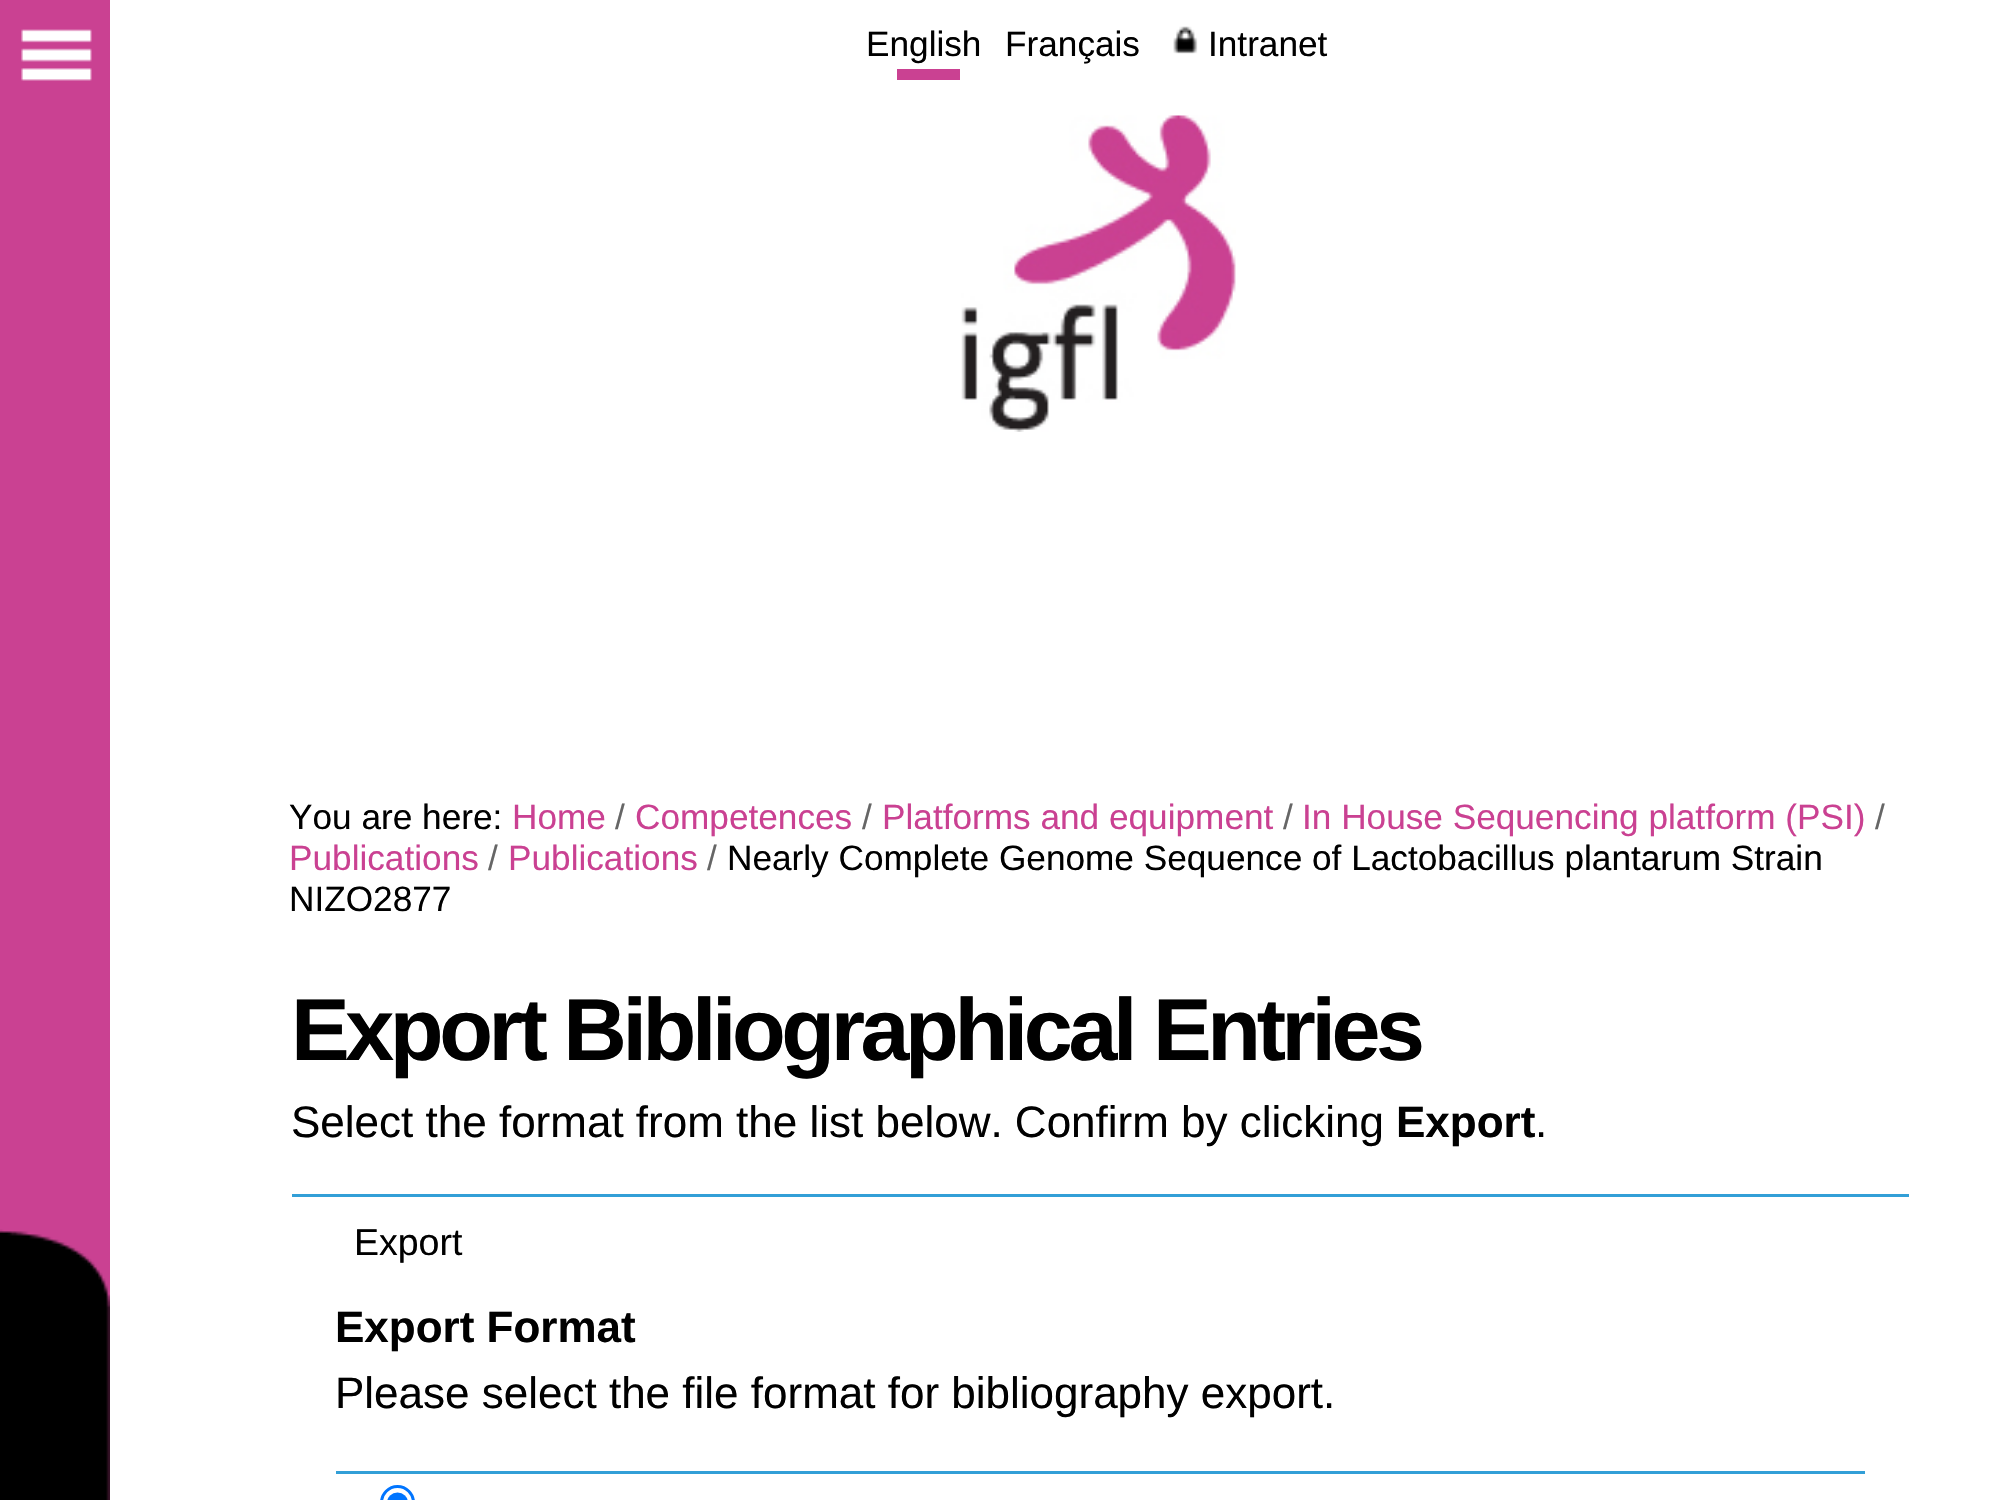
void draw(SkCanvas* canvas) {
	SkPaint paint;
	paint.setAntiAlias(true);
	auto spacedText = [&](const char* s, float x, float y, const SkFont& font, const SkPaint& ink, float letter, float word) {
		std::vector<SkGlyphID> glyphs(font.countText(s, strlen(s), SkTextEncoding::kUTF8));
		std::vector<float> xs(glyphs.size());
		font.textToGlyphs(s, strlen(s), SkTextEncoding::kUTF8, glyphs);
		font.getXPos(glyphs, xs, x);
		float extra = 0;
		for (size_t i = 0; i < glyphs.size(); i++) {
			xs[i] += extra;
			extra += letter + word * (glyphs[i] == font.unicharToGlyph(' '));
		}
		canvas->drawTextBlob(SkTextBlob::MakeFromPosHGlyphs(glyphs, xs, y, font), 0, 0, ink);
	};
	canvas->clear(0xffffffff);
	paint.setColor(0xffca4192);
	canvas->drawRect(SkRect::MakeXYWH(0, 0, 110, 1500), paint);
	canvas->drawImageRect(SkImages::DeferredFromEncodedData(SkData::MakeFromFileName("img1.png")), SkRect::MakeXYWH(0, 1229, 110, 271), SkSamplingOptions());
	canvas->drawImageRect(SkImages::DeferredFromEncodedData(SkData::MakeFromFileName("img2.png")), SkRect::MakeXYWH(21, 29, 71, 52), SkSamplingOptions());
	SkFont f1(fontMgr->matchFamilyStyle("Liberation Sans", SkFontStyle::Normal()), 35.2);
	f1.setSubpixel(true);
	paint.setColor(0xff000000);
	canvas->drawString("English", 866, 56, f1, paint);
	paint.setColor(0xffca4192);
	canvas->drawRect(SkRect::MakeXYWH(897, 69, 63, 11), paint);
	paint.setColor(0xff000000);
	canvas->drawString("Français", 1005, 56, f1, paint);
	canvas->drawImageRect(SkImages::DeferredFromEncodedData(SkData::MakeFromFileName("img3.png")), SkRect::MakeXYWH(1173, 26, 25, 28), SkSamplingOptions());
	canvas->drawString("Intranet", 1208, 56, f1, paint);
	canvas->drawImageRect(SkImages::DeferredFromEncodedData(SkData::MakeFromFileName("img4.png")), SkRect::MakeXYWH(961, 115, 275, 317), SkSamplingOptions());
	canvas->drawString("You are here:", 289, 829, f1, paint);
	paint.setColor(0xffca4192);
	canvas->drawString("Home", 512, 829, f1, paint);
	paint.setColor(0xff666666);
	canvas->drawString("/", 615, 829, f1, paint);
	paint.setColor(0xffca4192);
	canvas->drawString("Competences", 635, 829, f1, paint);
	paint.setColor(0xff666666);
	canvas->drawString("/", 862, 829, f1, paint);
	paint.setColor(0xffca4192);
	canvas->drawString("Platforms and equipment", 882, 829, f1, paint);
	paint.setColor(0xff666666);
	canvas->drawString("/", 1283, 829, f1, paint);
	paint.setColor(0xffca4192);
	canvas->drawString("In House Sequencing platform (PSI)", 1302, 829, f1, paint);
	paint.setColor(0xff666666);
	canvas->drawString("/", 1875, 829, f1, paint);
	paint.setColor(0xffca4192);
	canvas->drawString("Publications", 289, 870, f1, paint);
	paint.setColor(0xff666666);
	canvas->drawString("/", 488, 870, f1, paint);
	paint.setColor(0xffca4192);
	canvas->drawString("Publications", 508, 870, f1, paint);
	paint.setColor(0xff666666);
	canvas->drawString("/", 707, 870, f1, paint);
	paint.setColor(0xff000000);
	canvas->drawString("Nearly Complete Genome Sequence of Lactobacillus plantarum Strain", 727, 870, f1, paint);
	canvas->drawString("NIZO2877", 289, 911, f1, paint);
	SkFont f2(fontMgr->matchFamilyStyle("Liberation Sans", SkFontStyle::Bold()), 88);
	f2.setSubpixel(true);
	spacedText("Export Bibliographical Entries", 291, 1060, f2, paint, -4.4, 0);
	SkFont f3(fontMgr->matchFamilyStyle("Liberation Sans", SkFontStyle::Normal()), 44);
	f3.setSubpixel(true);
	canvas->drawString("Select the format from the list below. Confirm by clicking", 291, 1137, f3, paint);
	SkFont f4(fontMgr->matchFamilyStyle("Liberation Sans", SkFontStyle::Bold()), 44);
	f4.setSubpixel(true);
	canvas->drawString("Export", 1396, 1137, f4, paint);
	canvas->drawString(".", 1535, 1137, f3, paint);
	paint.setColor(0xff329fd7);
	canvas->drawRect(SkRect::MakeXYWH(292, 1194, 1617, 3), paint);
	SkFont f5(fontMgr->matchFamilyStyle("Liberation Sans", SkFontStyle::Normal()), 37.5);
	f5.setSubpixel(true);
	paint.setColor(0xff000000);
	canvas->drawString("Export", 354, 1255, f5, paint);
	canvas->drawString("Export Format", 335, 1342, f4, paint);
	canvas->drawString("Please select the file format for bibliography export.", 335, 1408, f3, paint);
	paint.setColor(0xff329fd7);
	canvas->drawRect(SkRect::MakeXYWH(336, 1471, 1529, 3), paint);
	paint.setStroke(true);
	paint.setStrokeWidth(3);
	paint.setColor(0xff0075ff);
	canvas->drawRoundRect(SkRect::MakeXYWH(381.5, 1486.5, 32, 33), 16, 16, paint);
	paint.setStroke(false);
	canvas->drawCircle(397.5, 1503, 10.5, paint);
}
